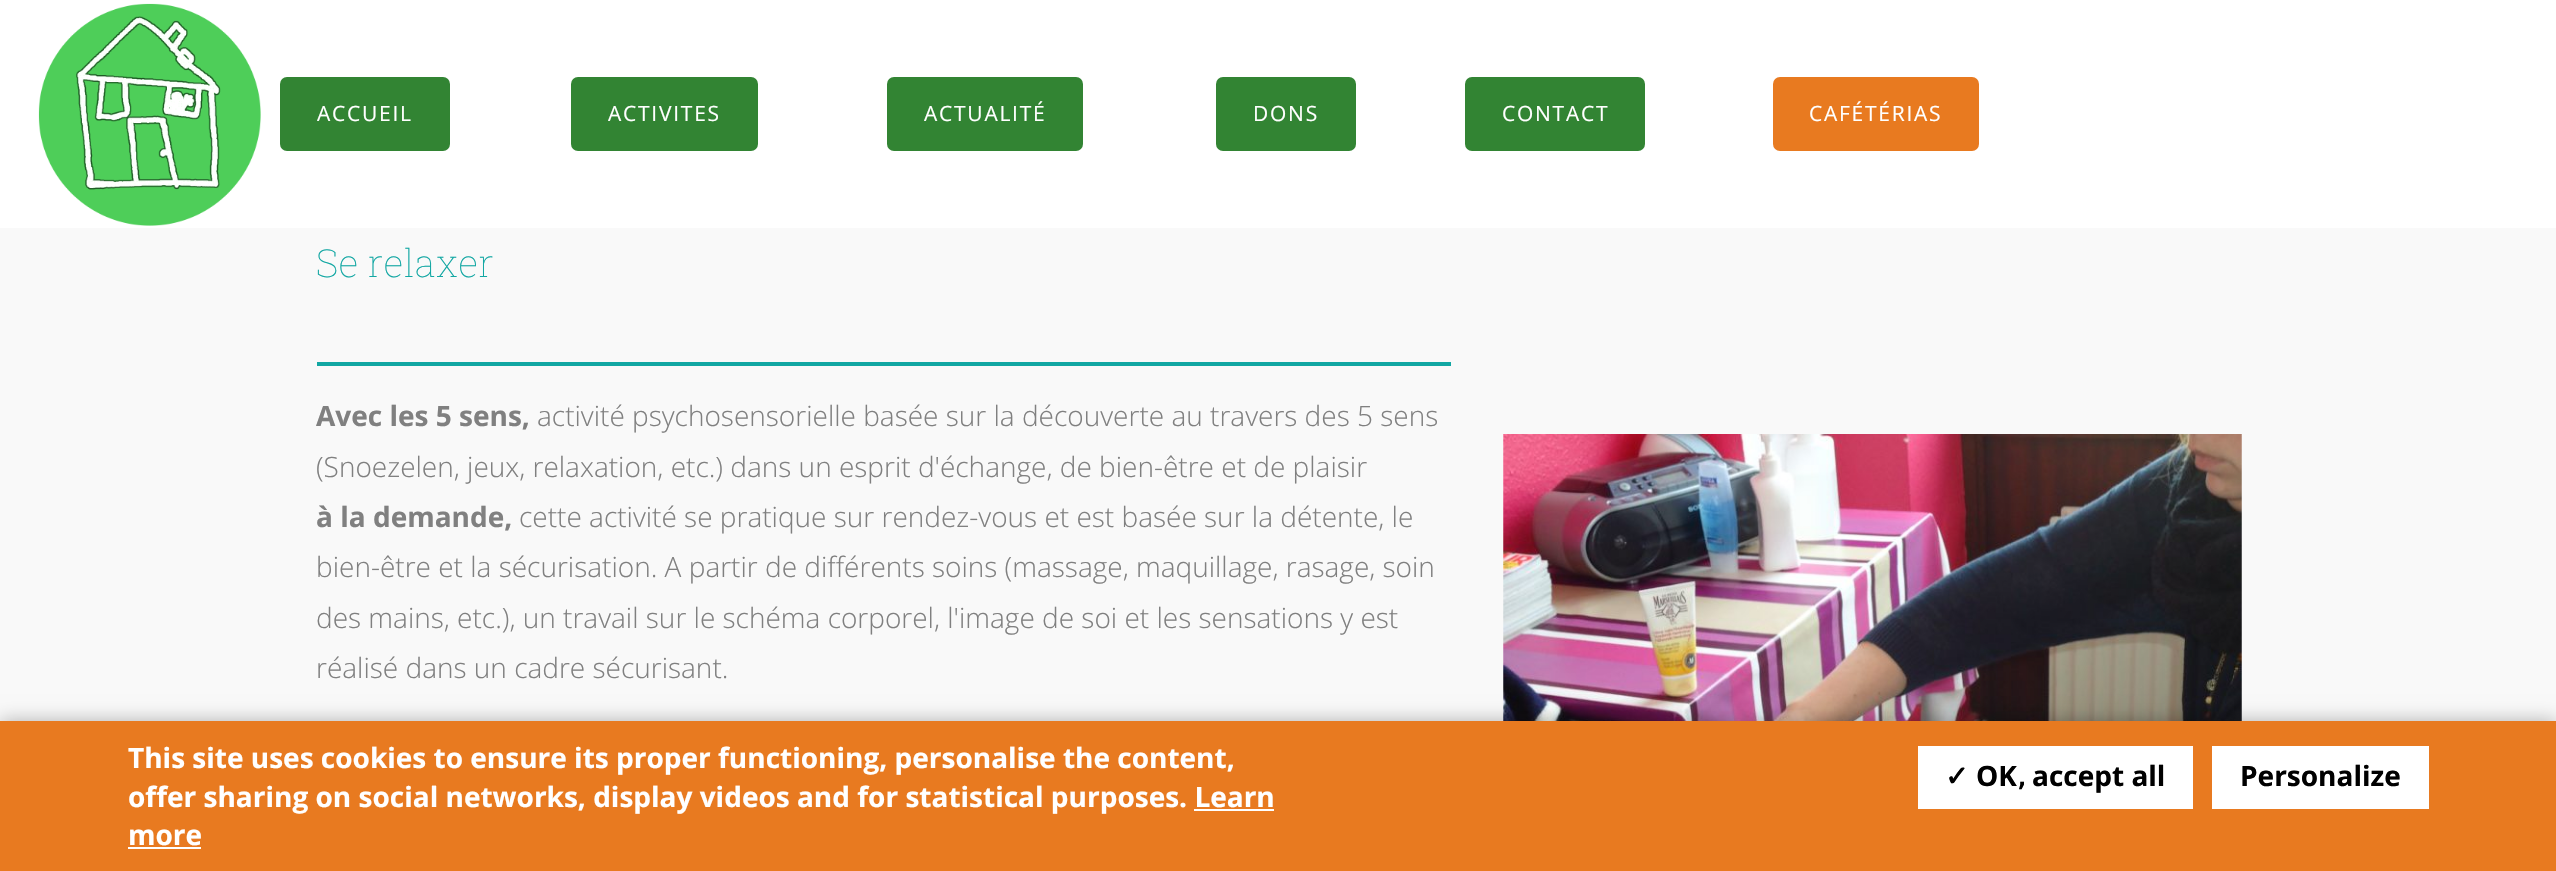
void draw(SkCanvas* canvas) {
	SkPaint paint;
	paint.setAntiAlias(true);
	auto spacedText = [&](const char* s, float x, float y, const SkFont& font, const SkPaint& ink, float letter, float word) {
		std::vector<SkGlyphID> glyphs(font.countText(s, strlen(s), SkTextEncoding::kUTF8));
		std::vector<float> xs(glyphs.size());
		font.textToGlyphs(s, strlen(s), SkTextEncoding::kUTF8, glyphs);
		font.getXPos(glyphs, xs, x);
		float extra = 0;
		for (size_t i = 0; i < glyphs.size(); i++) {
			xs[i] += extra;
			extra += letter + word * (glyphs[i] == font.unicharToGlyph(' '));
		}
		canvas->drawTextBlob(SkTextBlob::MakeFromPosHGlyphs(glyphs, xs, y, font), 0, 0, ink);
	};
	canvas->clear(0xfff9f9f9);
	paint.setColor(0xffffffff);
	canvas->drawRect(SkRect::MakeXYWH(0, 0, 2556, 228), paint);
	canvas->drawImageRect(SkImages::DeferredFromEncodedData(SkData::MakeFromFileName("img1.png")), SkRect::MakeXYWH(38, 3, 223, 223), SkSamplingOptions());
	paint.setColor(0xff328433);
	canvas->drawRoundRect(SkRect::MakeXYWH(280, 77, 170, 74), 7, 7, paint);
	SkFont f1(fontMgr->matchFamilyStyle("Open Sans", SkFontStyle::Normal()), 21);
	f1.setSubpixel(true);
	paint.setColor(0xffffffff);
	spacedText("ACCUEIL", 317, 121, f1, paint, 1.75, 0);
	paint.setColor(0xff328433);
	canvas->drawRoundRect(SkRect::MakeXYWH(571, 77, 187, 74), 7, 7, paint);
	paint.setColor(0xffffffff);
	spacedText("ACTIVITES", 608, 121, f1, paint, 1.75, 0);
	paint.setColor(0xff328433);
	canvas->drawRoundRect(SkRect::MakeXYWH(887, 77, 196, 74), 7, 7, paint);
	paint.setColor(0xffffffff);
	spacedText("ACTUALITÉ", 924, 121, f1, paint, 1.75, 0);
	paint.setColor(0xff328433);
	canvas->drawRoundRect(SkRect::MakeXYWH(1216, 77, 140, 74), 7, 7, paint);
	paint.setColor(0xffffffff);
	spacedText("DONS", 1253, 121, f1, paint, 1.75, 0);
	paint.setColor(0xff328433);
	canvas->drawRoundRect(SkRect::MakeXYWH(1465, 77, 180, 74), 7, 7, paint);
	paint.setColor(0xffffffff);
	spacedText("CONTACT", 1502, 121, f1, paint, 1.75, 0);
	paint.setColor(0xffe87a20);
	canvas->drawRoundRect(SkRect::MakeXYWH(1773, 77, 206, 74), 7, 7, paint);
	paint.setColor(0xffffffff);
	spacedText("CAFÉTÉRIAS", 1809, 121, f1, paint, 1.75, 0);
	SkFont f2(fontMgr->matchFamilyStyle("Roboto Slab", SkFontStyle(100, SkFontStyle::kNormal_Width, SkFontStyle::kUpright_Slant)), 38.5);
	f2.setSubpixel(true);
	paint.setColor(0xff12a7a3);
	canvas->drawString("Se relaxer", 316, 277, f2, paint);
	canvas->drawRect(SkRect::MakeXYWH(317, 362, 1134, 4), paint);
	SkFont f3(fontMgr->matchFamilyStyle("Open Sans", SkFontStyle::Bold()), 28);
	f3.setSubpixel(true);
	paint.setColor(0xff808080);
	canvas->drawString("Avec les 5 sens,", 316, 426, f3, paint);
	SkFont f4(fontMgr->matchFamilyStyle("Open Sans", SkFontStyle(300, SkFontStyle::kNormal_Width, SkFontStyle::kUpright_Slant)), 28);
	f4.setSubpixel(true);
	canvas->drawString("activité psychosensorielle basée sur la découverte au travers des 5 sens", 537, 426, f4, paint);
	canvas->drawString("(Snoezelen, jeux, relaxation, etc.) dans un esprit d'échange, de bien-être et de plaisir", 316, 477, f4, paint);
	canvas->drawString("à la demande,", 316, 527, f3, paint);
	canvas->drawString("cette activité se pratique sur rendez-vous et est basée sur la détente, le", 519, 527, f4, paint);
	canvas->drawString("bien-être et la sécurisation. A partir de différents soins (massage, maquillage, rasage, soin", 316, 577, f4, paint);
	canvas->drawString("des mains, etc.), un travail sur le schéma corporel, l'image de soi et les sensations y est", 316, 628, f4, paint);
	canvas->drawString("réalisé dans un cadre sécurisant.", 316, 678, f4, paint);
	canvas->drawImageRect(SkImages::DeferredFromEncodedData(SkData::MakeFromFileName("img2.png")), SkRect::MakeXYWH(1503, 434, 739, 287), SkSamplingOptions());
	paint.setColor(0x4d000000);
	paint.setMaskFilter(SkMaskFilter::MakeBlur(kNormal_SkBlurStyle, 9));
	canvas->drawRect(SkRect::MakeXYWH(0, 721, 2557, 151), paint);
	paint.setMaskFilter(nullptr);
	paint.setColor(0xffe87a20);
	canvas->drawRect(SkRect::MakeXYWH(0, 721, 2556, 150), paint);
	paint.setColor(0xffffffff);
	canvas->drawString("This site uses cookies to ensure its proper functioning, personalise the content,", 128, 768, f3, paint);
	canvas->drawString("offer sharing on social networks, display videos and for statistical purposes. Learn", 128, 807, f3, paint);
	canvas->drawString("more", 128, 845, f3, paint);
	canvas->drawRect(SkRect::MakeXYWH(1194, 809, 80, 2), paint);
	canvas->drawRect(SkRect::MakeXYWH(128, 847, 73, 2), paint);
	canvas->drawRect(SkRect::MakeXYWH(1918, 746, 275, 63), paint);
	SkFont f5(fontMgr->matchFamilyStyle("DejaVu Sans", SkFontStyle::Bold()), 28);
	f5.setSubpixel(true);
	paint.setColor(0xff000000);
	canvas->drawString("✓", 1945, 786, f5, paint);
	canvas->drawString("OK", 1976, 786, f3, paint);
	canvas->drawString("accept all", 2032, 786, f3, paint);
	canvas->drawString(",", 2017, 786, f5, paint);
	paint.setColor(0xffffffff);
	canvas->drawRect(SkRect::MakeXYWH(2212, 746, 217, 63), paint);
	paint.setColor(0xff000000);
	canvas->drawString("Personalize", 2240, 786, f3, paint);
}
